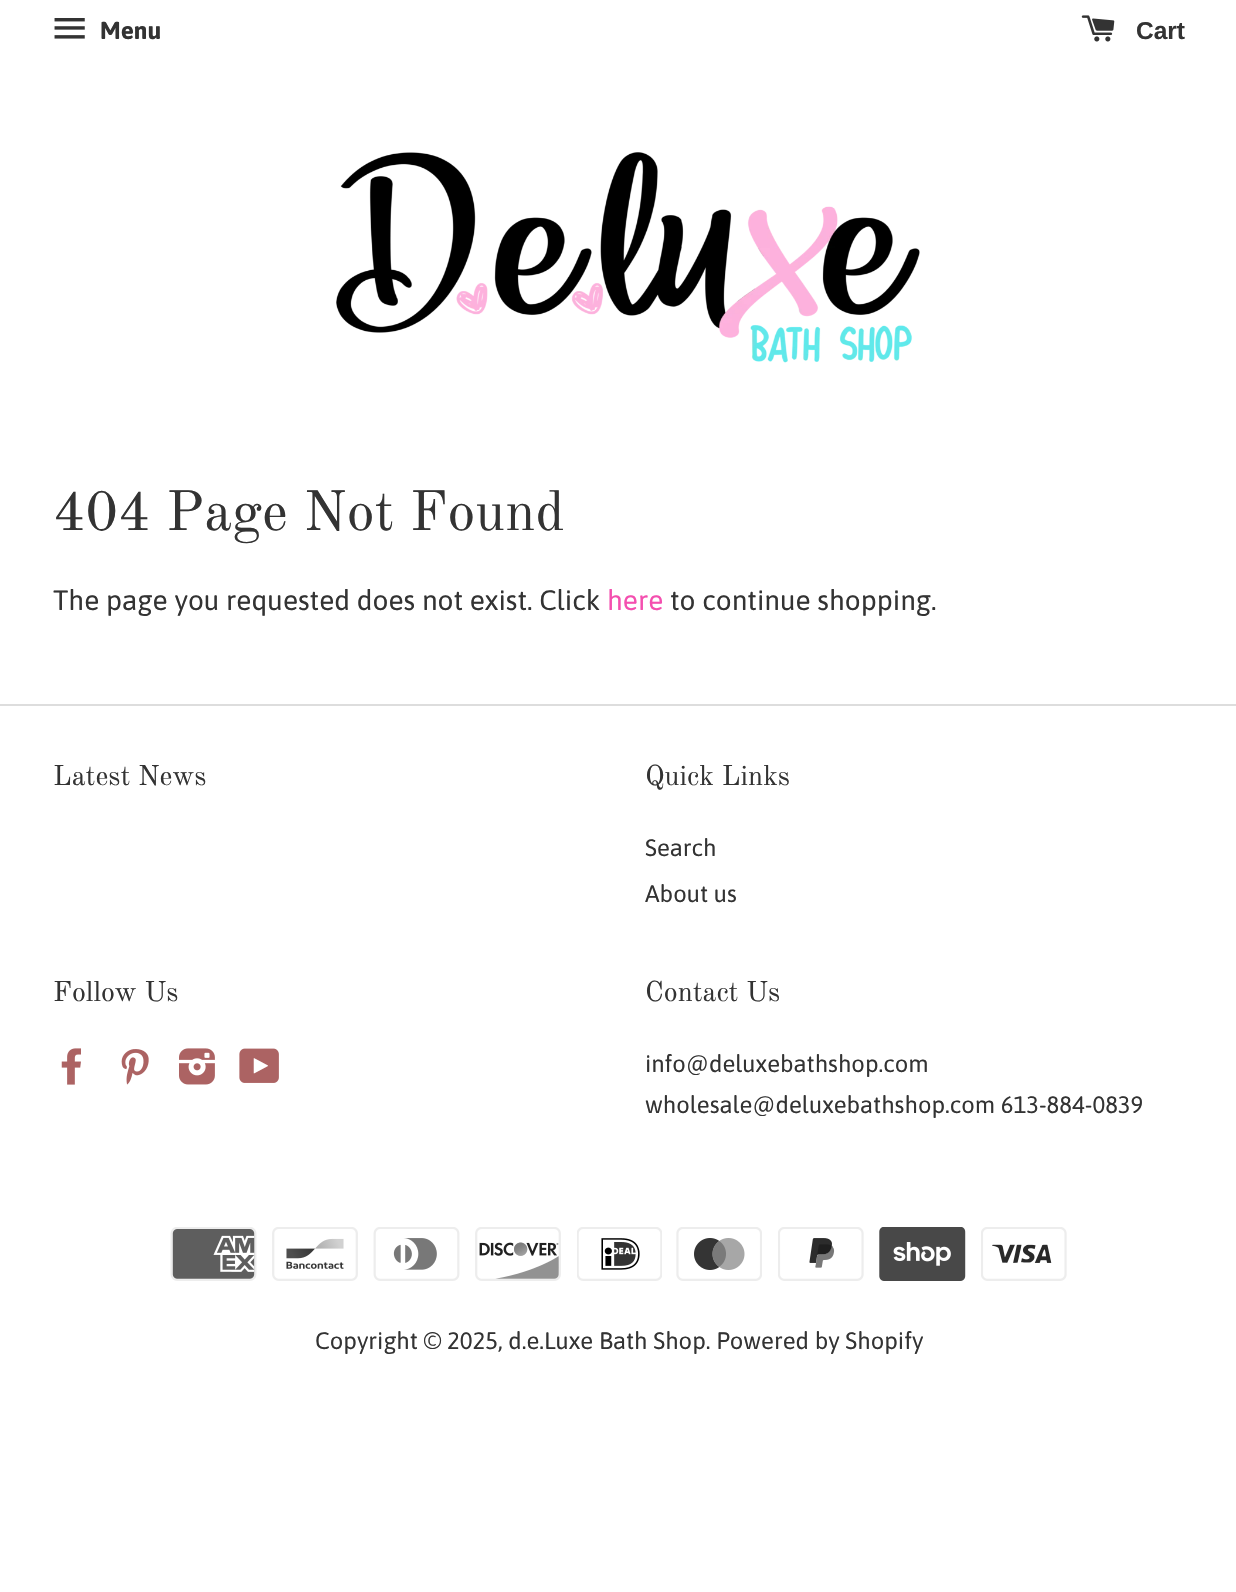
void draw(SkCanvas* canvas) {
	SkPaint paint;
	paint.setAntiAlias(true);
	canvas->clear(0xffffffff);
	canvas->drawImageRect(SkImages::DeferredFromEncodedData(SkData::MakeFromFileName("img1.png")), SkRect::MakeXYWH(54, 18, 31, 21), SkSamplingOptions());
	SkFont f1(fontMgr->matchFamilyStyle("Asap", SkFontStyle::Bold()), 24.5);
	f1.setSubpixel(true);
	paint.setColor(0xff333333);
	canvas->drawString("Menu", 100, 39, f1, paint);
	canvas->drawImageRect(SkImages::DeferredFromEncodedData(SkData::MakeFromFileName("img2.png")), SkRect::MakeXYWH(1081, 15, 34, 27), SkSamplingOptions());
	SkFont f2(fontMgr->matchFamilyStyle("Liberation Sans", SkFontStyle::Bold()), 24.5);
	f2.setSubpixel(true);
	canvas->drawString("Cart", 1136, 39, f2, paint);
	canvas->drawImageRect(SkImages::DeferredFromEncodedData(SkData::MakeFromFileName("img3.png")), SkRect::MakeXYWH(336, 152, 584, 211), SkSamplingOptions());
	SkFont f3(fontMgr->matchFamilyStyle("Old Standard TT", SkFontStyle::Normal()), 56);
	f3.setSubpixel(true);
	canvas->drawString("404 Page Not Found", 53, 530, f3, paint);
	SkFont f4(fontMgr->matchFamilyStyle("Asap", SkFontStyle::Normal()), 28);
	f4.setSubpixel(true);
	canvas->drawString("The page you requested does not exist. Click", 53, 610, f4, paint);
	paint.setColor(0xfff44faf);
	canvas->drawString("here", 607, 610, f4, paint);
	paint.setColor(0xff333333);
	canvas->drawString("to continue shopping.", 670, 610, f4, paint);
	paint.setColor(0xffdddddd);
	canvas->drawRect(SkRect::MakeXYWH(0, 704, 1236, 2), paint);
	SkFont f5(fontMgr->matchFamilyStyle("Old Standard TT", SkFontStyle::Normal()), 28);
	f5.setSubpixel(true);
	paint.setColor(0xff333333);
	canvas->drawString("Latest News", 53, 785, f5, paint);
	canvas->drawString("Quick Links", 645, 785, f5, paint);
	SkFont f6(fontMgr->matchFamilyStyle("Asap", SkFontStyle::Normal()), 23.8);
	f6.setSubpixel(true);
	canvas->drawString("Search", 645, 856, f6, paint);
	canvas->drawString("About us", 645, 902, f6, paint);
	canvas->drawString("Follow Us", 53, 1001, f5, paint);
	canvas->drawImageRect(SkImages::DeferredFromEncodedData(SkData::MakeFromFileName("img4.png")), SkRect::MakeXYWH(61, 1048, 20, 37), SkSamplingOptions());
	canvas->drawImageRect(SkImages::DeferredFromEncodedData(SkData::MakeFromFileName("img5.png")), SkRect::MakeXYWH(121, 1049, 28, 36), SkSamplingOptions());
	canvas->drawImageRect(SkImages::DeferredFromEncodedData(SkData::MakeFromFileName("img6.png")), SkRect::MakeXYWH(179, 1048, 36, 37), SkSamplingOptions());
	canvas->drawImageRect(SkImages::DeferredFromEncodedData(SkData::MakeFromFileName("img7.png")), SkRect::MakeXYWH(239, 1048, 40, 35), SkSamplingOptions());
	canvas->drawString("Contact Us", 645, 1001, f5, paint);
	canvas->drawString("info@deluxebathshop.com", 645, 1072, f6, paint);
	canvas->drawString("wholesale@deluxebathshop.com 613-884-0839", 645, 1113, f6, paint);
	canvas->drawImageRect(SkImages::DeferredFromEncodedData(SkData::MakeFromFileName("img8.png")), SkRect::MakeXYWH(170, 1227, 87, 54), SkSamplingOptions());
	canvas->drawImageRect(SkImages::DeferredFromEncodedData(SkData::MakeFromFileName("img9.png")), SkRect::MakeXYWH(272, 1227, 86, 54), SkSamplingOptions());
	canvas->drawImageRect(SkImages::DeferredFromEncodedData(SkData::MakeFromFileName("img10.png")), SkRect::MakeXYWH(373, 1227, 87, 54), SkSamplingOptions());
	canvas->drawImageRect(SkImages::DeferredFromEncodedData(SkData::MakeFromFileName("img11.png")), SkRect::MakeXYWH(475, 1227, 86, 54), SkSamplingOptions());
	canvas->drawImageRect(SkImages::DeferredFromEncodedData(SkData::MakeFromFileName("img12.png")), SkRect::MakeXYWH(577, 1227, 85, 54), SkSamplingOptions());
	canvas->drawImageRect(SkImages::DeferredFromEncodedData(SkData::MakeFromFileName("img13.png")), SkRect::MakeXYWH(676, 1227, 86, 54), SkSamplingOptions());
	canvas->drawImageRect(SkImages::DeferredFromEncodedData(SkData::MakeFromFileName("img14.png")), SkRect::MakeXYWH(778, 1227, 86, 54), SkSamplingOptions());
	canvas->drawImageRect(SkImages::DeferredFromEncodedData(SkData::MakeFromFileName("img15.png")), SkRect::MakeXYWH(879, 1227, 87, 54), SkSamplingOptions());
	canvas->drawImageRect(SkImages::DeferredFromEncodedData(SkData::MakeFromFileName("img16.png")), SkRect::MakeXYWH(981, 1227, 86, 54), SkSamplingOptions());
	canvas->drawString("Copyright © 2025, d.e.Luxe Bath Shop. Powered by Shopify", 315, 1349, f6, paint);
}
